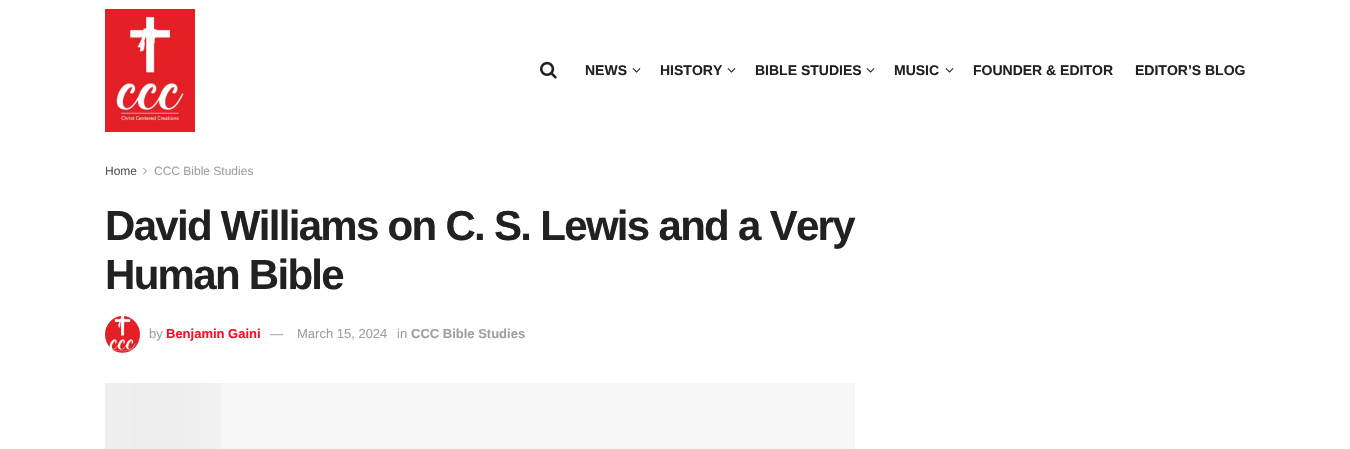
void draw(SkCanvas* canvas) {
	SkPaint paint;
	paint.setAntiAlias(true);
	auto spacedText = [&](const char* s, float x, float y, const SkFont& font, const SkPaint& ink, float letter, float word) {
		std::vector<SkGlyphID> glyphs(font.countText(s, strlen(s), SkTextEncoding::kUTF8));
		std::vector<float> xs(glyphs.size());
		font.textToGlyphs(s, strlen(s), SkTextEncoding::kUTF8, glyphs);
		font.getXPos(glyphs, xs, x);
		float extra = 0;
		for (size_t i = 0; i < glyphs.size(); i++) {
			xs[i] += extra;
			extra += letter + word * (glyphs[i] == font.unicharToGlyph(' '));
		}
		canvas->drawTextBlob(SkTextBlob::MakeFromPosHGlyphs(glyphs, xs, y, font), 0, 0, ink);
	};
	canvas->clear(0xffffffff);
	canvas->drawImageRect(SkImages::DeferredFromEncodedData(SkData::MakeFromFileName("img1.png")), SkRect::MakeXYWH(105, 9, 90, 123), SkSamplingOptions());
	canvas->drawImageRect(SkImages::DeferredFromEncodedData(SkData::MakeFromFileName("img2.png")), SkRect::MakeXYWH(540, 61, 17, 18), SkSamplingOptions());
	SkFont f1(fontMgr->matchFamilyStyle("Liberation Sans", SkFontStyle::Bold()), 14);
	f1.setSubpixel(true);
	paint.setColor(0xff212121);
	canvas->drawString("NEWS", 585, 75, f1, paint);
	canvas->drawImageRect(SkImages::DeferredFromEncodedData(SkData::MakeFromFileName("img3.png")), SkRect::MakeXYWH(632, 68, 9, 5), SkSamplingOptions());
	canvas->drawString("HISTORY", 660, 75, f1, paint);
	canvas->drawImageRect(SkImages::DeferredFromEncodedData(SkData::MakeFromFileName("img3.png")), SkRect::MakeXYWH(727, 68, 9, 5), SkSamplingOptions());
	canvas->drawString("BIBLE STUDIES", 755, 75, f1, paint);
	canvas->drawImageRect(SkImages::DeferredFromEncodedData(SkData::MakeFromFileName("img3.png")), SkRect::MakeXYWH(866, 68, 9, 5), SkSamplingOptions());
	canvas->drawString("MUSIC", 894, 75, f1, paint);
	canvas->drawImageRect(SkImages::DeferredFromEncodedData(SkData::MakeFromFileName("img3.png")), SkRect::MakeXYWH(945, 68, 9, 5), SkSamplingOptions());
	canvas->drawString("FOUNDER & EDITOR", 973, 75, f1, paint);
	canvas->drawString("EDITOR’S BLOG", 1135, 75, f1, paint);
	SkFont f2(fontMgr->matchFamilyStyle("Liberation Sans", SkFontStyle::Normal()), 12);
	f2.setSubpixel(true);
	paint.setColor(0xff53585c);
	canvas->drawString("Home", 105, 175, f2, paint);
	canvas->drawImageRect(SkImages::DeferredFromEncodedData(SkData::MakeFromFileName("img4.png")), SkRect::MakeXYWH(143, 167, 4, 8), SkSamplingOptions());
	paint.setColor(0xffa0a0a0);
	canvas->drawString("CCC Bible Studies", 154, 175, f2, paint);
	SkFont f3(fontMgr->matchFamilyStyle("Liberation Sans", SkFontStyle::Bold()), 42);
	f3.setSubpixel(true);
	paint.setColor(0xff212121);
	spacedText("David Williams on C. S. Lewis and a Very", 105, 240, f3, paint, -1.7, 0);
	spacedText("Human Bible", 105, 289, f3, paint, -1.7, 0);
	canvas->drawImageRect(SkImages::DeferredFromEncodedData(SkData::MakeFromFileName("img5.png")), SkRect::MakeXYWH(105, 316, 35, 37), SkSamplingOptions());
	SkFont f4(fontMgr->matchFamilyStyle("Liberation Sans", SkFontStyle::Normal()), 13);
	f4.setSubpixel(true);
	paint.setColor(0xffa0a0a0);
	canvas->drawString("by", 149, 338, f4, paint);
	SkFont f5(fontMgr->matchFamilyStyle("Liberation Sans", SkFontStyle::Bold()), 13);
	f5.setSubpixel(true);
	paint.setColor(0xfff70d28);
	canvas->drawString("Benjamin Gaini", 166, 338, f5, paint);
	paint.setColor(0xffa0a0a0);
	canvas->drawString("—", 270, 338, f4, paint);
	canvas->drawString("March 15, 2024", 297, 338, f4, paint);
	canvas->drawString("in", 397, 338, f4, paint);
	canvas->drawString("CCC Bible Studies", 411, 338, f5, paint);
	paint.setColor(0xfff7f7f7);
	canvas->drawRect(SkRect::MakeXYWH(221, 383, 634, 66), paint);
	canvas->drawImageRect(SkImages::DeferredFromEncodedData(SkData::MakeFromFileName("img6.png")), SkRect::MakeXYWH(105, 383, 116, 66), SkSamplingOptions());
}
